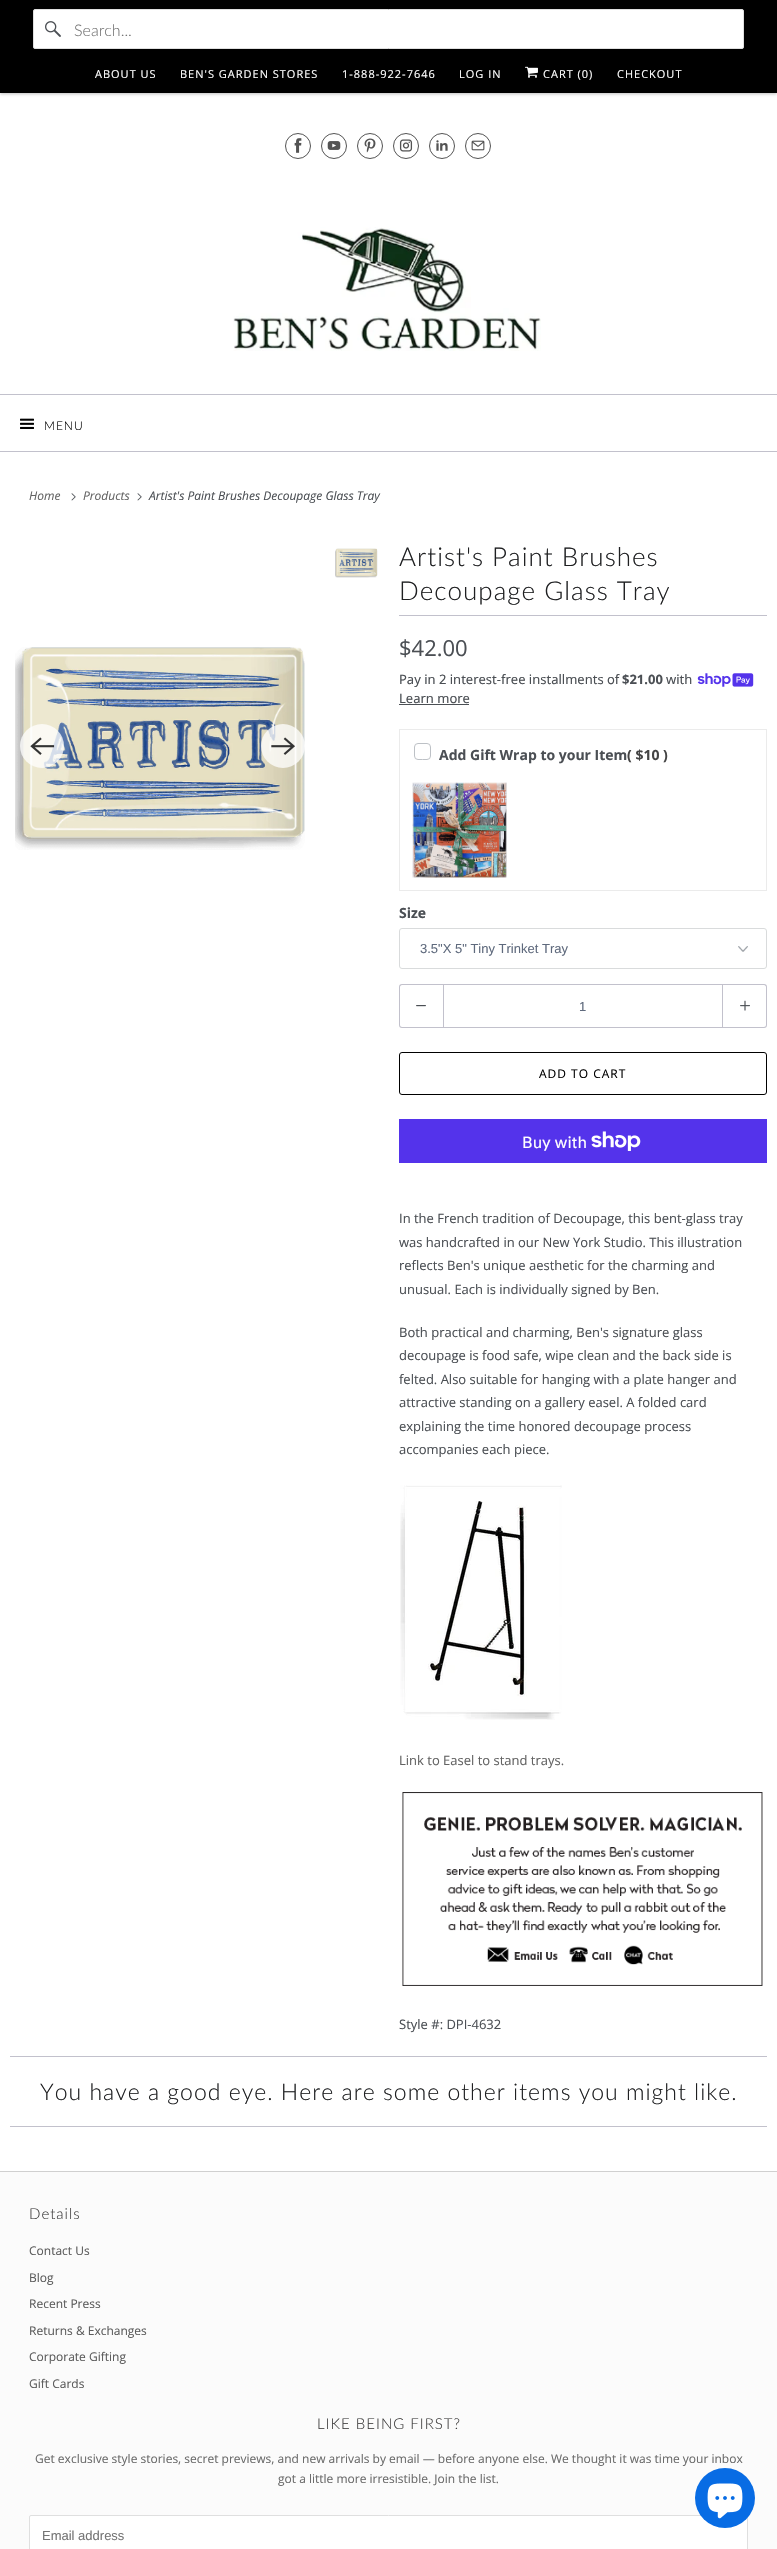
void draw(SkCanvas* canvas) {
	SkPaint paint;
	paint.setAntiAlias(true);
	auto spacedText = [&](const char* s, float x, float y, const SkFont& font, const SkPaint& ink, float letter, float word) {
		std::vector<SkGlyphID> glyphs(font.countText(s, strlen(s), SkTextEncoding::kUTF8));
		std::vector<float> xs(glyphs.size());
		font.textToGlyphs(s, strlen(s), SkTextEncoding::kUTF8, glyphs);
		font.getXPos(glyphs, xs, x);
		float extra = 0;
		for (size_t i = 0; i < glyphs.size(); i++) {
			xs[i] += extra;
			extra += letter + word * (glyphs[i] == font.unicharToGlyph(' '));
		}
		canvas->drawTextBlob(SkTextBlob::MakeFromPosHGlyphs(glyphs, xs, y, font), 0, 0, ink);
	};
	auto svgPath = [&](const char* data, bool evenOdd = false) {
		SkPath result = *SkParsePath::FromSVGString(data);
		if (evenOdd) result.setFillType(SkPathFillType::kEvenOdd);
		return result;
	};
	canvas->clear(0xffffffff);
	paint.setColor(0x40000000);
	paint.setMaskFilter(SkMaskFilter::MakeBlur(kNormal_SkBlurStyle, 1.5));
	canvas->drawRect(SkRect::MakeXYWH(0, 1, 777, 93), paint);
	paint.setMaskFilter(nullptr);
	paint.setColor(0xff000000);
	canvas->drawRect(SkRect::MakeXYWH(0, 0, 777, 93), paint);
	paint.setColor(0xffffffff);
	canvas->drawRoundRect(SkRect::MakeXYWH(33.5, 9.5, 710, 39), 1.5, 1.5, paint);
	paint.setStroke(true);
	paint.setStrokeWidth(1);
	paint.setColor(0xffdfdfdf);
	canvas->drawRoundRect(SkRect::MakeXYWH(33.5, 9.5, 710, 39), 1.5, 1.5, paint);
	canvas->drawImageRect(SkImages::DeferredFromEncodedData(SkData::MakeFromFileName("img1.png")), SkRect::MakeXYWH(45, 21, 16, 16), SkSamplingOptions());
	SkFont f1(fontMgr->matchFamilyStyle("Lato", SkFontStyle(300, SkFontStyle::kNormal_Width, SkFontStyle::kUpright_Slant)), 16);
	f1.setSubpixel(true);
	paint.setStroke(false);
	paint.setColor(0xff757575);
	canvas->drawString("Search...", 74, 36, f1, paint);
	SkFont f2(fontMgr->matchFamilyStyle("Open Sans", SkFontStyle::Normal()), 11);
	f2.setSubpixel(true);
	paint.setColor(0xffffffff);
	spacedText("ABOUT US", 95, 78, f2, paint, 1, 0);
	spacedText("BEN'S GARDEN STORES", 180, 78, f2, paint, 1, 0);
	spacedText("1-888-922-7646", 342, 78, f2, paint, 1, 0);
	spacedText("LOG IN", 459, 78, f2, paint, 1, 0);
	canvas->drawImageRect(SkImages::DeferredFromEncodedData(SkData::MakeFromFileName("img2.png")), SkRect::MakeXYWH(525, 66, 13, 12), SkSamplingOptions());
	spacedText("CART (0)", 543, 78, f2, paint, 1, 0);
	spacedText("CHECKOUT", 617, 78, f2, paint, 1, 0);
	paint.setStroke(true);
	paint.setColor(0xff535353);
	canvas->drawCircle(298, 146, 12.5, paint);
	canvas->drawImageRect(SkImages::DeferredFromEncodedData(SkData::MakeFromFileName("img3.png")), SkRect::MakeXYWH(294, 138, 8, 15), SkSamplingOptions());
	canvas->drawCircle(334, 146, 12.5, paint);
	canvas->drawImageRect(SkImages::DeferredFromEncodedData(SkData::MakeFromFileName("img4.png")), SkRect::MakeXYWH(327, 141, 14, 9), SkSamplingOptions());
	canvas->drawCircle(370, 146, 12.5, paint);
	canvas->drawImageRect(SkImages::DeferredFromEncodedData(SkData::MakeFromFileName("img5.png")), SkRect::MakeXYWH(364, 138, 12, 15), SkSamplingOptions());
	canvas->drawCircle(406, 146, 12.5, paint);
	canvas->drawImageRect(SkImages::DeferredFromEncodedData(SkData::MakeFromFileName("img6.png")), SkRect::MakeXYWH(399, 139, 14, 13), SkSamplingOptions());
	canvas->drawCircle(442, 146, 12.5, paint);
	canvas->drawImageRect(SkImages::DeferredFromEncodedData(SkData::MakeFromFileName("img7.png")), SkRect::MakeXYWH(436, 140, 12, 11), SkSamplingOptions());
	canvas->drawCircle(478, 146, 12.5, paint);
	canvas->drawImageRect(SkImages::DeferredFromEncodedData(SkData::MakeFromFileName("img8.png")), SkRect::MakeXYWH(471, 140, 14, 11), SkSamplingOptions());
	canvas->drawImageRect(SkImages::DeferredFromEncodedData(SkData::MakeFromFileName("img9.png")), SkRect::MakeXYWH(233, 227, 308, 124), SkSamplingOptions());
	paint.setStroke(false);
	paint.setColor(0xffc2c1cc);
	canvas->drawRect(SkRect::MakeXYWH(0, 394, 777, 1), paint);
	canvas->drawRect(SkRect::MakeXYWH(0, 451, 777, 1), paint);
	canvas->drawImageRect(SkImages::DeferredFromEncodedData(SkData::MakeFromFileName("img10.png")), SkRect::MakeXYWH(20, 418, 14, 11), SkSamplingOptions());
	SkFont f3(fontMgr->matchFamilyStyle("Lato", SkFontStyle(300, SkFontStyle::kNormal_Width, SkFontStyle::kUpright_Slant)), 12);
	f3.setSubpixel(true);
	paint.setColor(0xff000000);
	spacedText("MENU", 44, 430, f3, paint, 1, 0);
	SkFont f4(fontMgr->matchFamilyStyle("Open Sans", SkFontStyle::Italic()), 12);
	f4.setSubpixel(true);
	paint.setColor(0xff636363);
	canvas->drawString("Home", 29, 500, f4, paint);
	canvas->drawImageRect(SkImages::DeferredFromEncodedData(SkData::MakeFromFileName("img11.png")), SkRect::MakeXYWH(71, 493, 5, 8), SkSamplingOptions());
	canvas->drawString("Products", 83, 500, f4, paint);
	canvas->drawImageRect(SkImages::DeferredFromEncodedData(SkData::MakeFromFileName("img11.png")), SkRect::MakeXYWH(137, 493, 5, 8), SkSamplingOptions());
	paint.setColor(0xff4b4f54);
	canvas->drawString("Artist's Paint Brushes Decoupage Glass Tray", 149, 500, f4, paint);
	canvas->drawImageRect(SkImages::DeferredFromEncodedData(SkData::MakeFromFileName("img12.png")), SkRect::MakeXYWH(335, 548, 43, 30), SkSamplingOptions());
	canvas->drawImageRect(SkImages::DeferredFromEncodedData(SkData::MakeFromFileName("img13.png")), SkRect::MakeXYWH(15, 647, 290, 203), SkSamplingOptions());
	paint.setColor(0xbfffffff);
	canvas->drawCircle(42, 746, 22, paint);
	canvas->drawImageRect(SkImages::DeferredFromEncodedData(SkData::MakeFromFileName("img14.png")), SkRect::MakeXYWH(30, 737, 25, 18), SkSamplingOptions());
	canvas->drawCircle(283, 746, 22, paint);
	canvas->drawImageRect(SkImages::DeferredFromEncodedData(SkData::MakeFromFileName("img15.png")), SkRect::MakeXYWH(271, 737, 24, 18), SkSamplingOptions());
	paint.setColor(0xffc2c1cc);
	canvas->drawRect(SkRect::MakeXYWH(399, 615, 368, 1), paint);
	SkFont f5(fontMgr->matchFamilyStyle("Lato", SkFontStyle(300, SkFontStyle::kNormal_Width, SkFontStyle::kUpright_Slant)), 26);
	f5.setSubpixel(true);
	paint.setColor(0xff1f2022);
	spacedText("Artist's Paint Brushes", 399, 566, f5, paint, 1, 0);
	spacedText("Decoupage Glass Tray", 399, 600, f5, paint, 1, 0);
	SkFont f6(fontMgr->matchFamilyStyle("Open Sans", SkFontStyle::Normal()), 22);
	f6.setSubpixel(true);
	paint.setColor(0xff4b4f54);
	canvas->drawString("$42.00", 399, 656, f6, paint);
	SkFont f7(fontMgr->matchFamilyStyle("Noto Sans", SkFontStyle::Normal()), 13);
	f7.setSubpixel(true);
	canvas->drawString("Pay in 2 interest-free installments of", 399, 684, f7, paint);
	SkFont f8(fontMgr->matchFamilyStyle("Noto Sans", SkFontStyle::Bold()), 13);
	f8.setSubpixel(true);
	canvas->drawString("$21.00", 622, 684, f8, paint);
	canvas->drawString("with", 666, 684, f7, paint);
	canvas->drawImageRect(SkImages::DeferredFromEncodedData(SkData::MakeFromFileName("img16.png")), SkRect::MakeXYWH(697, 673, 57, 14), SkSamplingOptions());
	canvas->drawString("Learn more", 399, 703, f7, paint);
	canvas->drawRect(SkRect::MakeXYWH(399, 704, 70, 1), paint);
	paint.setStroke(true);
	paint.setColor(0xffebebeb);
	canvas->drawRect(SkRect::MakeXYWH(399.5, 729.5, 367, 161), paint);
	paint.setColor(0xffbdc1c6);
	canvas->drawRoundRect(SkRect::MakeXYWH(414.5, 743.5, 16, 16), 3.5, 3.5, paint);
	paint.setStroke(false);
	paint.setColor(0xffffffff);
	canvas->drawPath(svgPath("M418.5 752.5L424 758L422.5 759.5L417 754Z"), paint);
	SkFont f9(fontMgr->matchFamilyStyle("Open Sans", SkFontStyle::Bold()), 14);
	f9.setSubpixel(true);
	paint.setColor(0xff4b4f54);
	canvas->drawString("Add Gift Wrap to your Item", 439, 760, f9, paint);
	paint.setColor(0xff444444);
	canvas->drawString("( $10 )", 627, 760, f9, paint);
	canvas->drawImageRect(SkImages::DeferredFromEncodedData(SkData::MakeFromFileName("img17.png")), SkRect::MakeXYWH(412, 782, 95, 96), SkSamplingOptions());
	paint.setColor(0xff4b4f54);
	canvas->drawString("Size", 399, 918, f9, paint);
	canvas->drawImageRect(SkImages::DeferredFromEncodedData(SkData::MakeFromFileName("img18.png")), SkRect::MakeXYWH(738, 946, 10, 6), SkSamplingOptions());
	paint.setStroke(true);
	paint.setColor(0xffd9dbdc);
	canvas->drawRoundRect(SkRect::MakeXYWH(399.5, 928.5, 367, 40), 2.5, 2.5, paint);
	SkFont f10(fontMgr->matchFamilyStyle("Liberation Sans", SkFontStyle::Normal()), 13);
	f10.setSubpixel(true);
	paint.setStroke(false);
	paint.setColor(0xff5f6a7d);
	canvas->drawString("3.5\"X 5\" Tiny Trinket Tray", 420, 953, f10, paint);
	paint.setColor(0xffc2c1cc);
	canvas->drawPath(svgPath("M402 984H443V1028H402C400 1028 399 1027 399 1025V987C399 985 400 984 402 984ZM402 985H443V1027H402C401 1027 400 1026 400 1025V987C400 986 401 985 402 985Z", true), paint);
	canvas->drawImageRect(SkImages::DeferredFromEncodedData(SkData::MakeFromFileName("img19.png")), SkRect::MakeXYWH(416, 1005, 10, 2), SkSamplingOptions());
	paint.setStroke(true);
	canvas->drawRect(SkRect::MakeXYWH(443.5, 984.5, 279, 43), paint);
	paint.setStroke(false);
	paint.setColor(0xff5f6a7d);
	canvas->drawString("1", 579, 1011, f10, paint);
	paint.setColor(0xffc2c1cc);
	canvas->drawPath(svgPath("M723 984H764C766 984 767 985 767 987V1025C767 1027 766 1028 764 1028H723ZM723 985H764C765 985 766 986 766 987V1025C766 1026 765 1027 764 1027H723Z", true), paint);
	canvas->drawImageRect(SkImages::DeferredFromEncodedData(SkData::MakeFromFileName("img20.png")), SkRect::MakeXYWH(740, 1000, 10, 11), SkSamplingOptions());
	paint.setStroke(true);
	paint.setColor(0xff000000);
	canvas->drawRoundRect(SkRect::MakeXYWH(399.5, 1052.5, 367, 42), 2.5, 2.5, paint);
	SkFont f11(fontMgr->matchFamilyStyle("Open Sans", SkFontStyle::Normal()), 12);
	f11.setSubpixel(true);
	paint.setStroke(false);
	spacedText("ADD TO CART", 539, 1078, f11, paint, 1, 0);
	paint.setColor(0xff5433eb);
	canvas->drawRect(SkRect::MakeXYWH(399, 1119, 368, 44), paint);
	SkFont f12(fontMgr->matchFamilyStyle("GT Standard", SkFontStyle::Normal()), 16);
	f12.setSubpixel(true);
	paint.setColor(0xffffffff);
	canvas->drawString("Buy with", 522, 1148, f12, paint);
	canvas->drawImageRect(SkImages::DeferredFromEncodedData(SkData::MakeFromFileName("img21.png")), SkRect::MakeXYWH(591, 1131, 50, 20), SkSamplingOptions());
	SkFont f13(fontMgr->matchFamilyStyle("Open Sans", SkFontStyle::Normal()), 13);
	f13.setSubpixel(true);
	paint.setColor(0xff4b4f54);
	canvas->drawString("In the French tradition of Decoupage, this bent-glass tray", 399, 1223, f13, paint);
	canvas->drawString("was handcrafted in our New York Studio. This illustration", 399, 1247, f13, paint);
	canvas->drawString("reflects Ben's unique aesthetic for the charming and", 399, 1270, f13, paint);
	canvas->drawString("unusual. Each is individually signed by Ben.", 399, 1294, f13, paint);
	canvas->drawString("Both practical and charming, Ben's signature glass", 399, 1337, f13, paint);
	canvas->drawString("decoupage is food safe, wipe clean and the back side is", 399, 1360, f13, paint);
	canvas->drawString("felted. Also suitable for hanging with a plate hanger and", 399, 1384, f13, paint);
	canvas->drawString("attractive standing on a gallery easel. A folded card", 399, 1407, f13, paint);
	canvas->drawString("explaining the time honored decoupage process", 399, 1431, f13, paint);
	canvas->drawString("accompanies each piece.", 399, 1454, f13, paint);
	canvas->drawImageRect(SkImages::DeferredFromEncodedData(SkData::MakeFromFileName("img22.png")), SkRect::MakeXYWH(400, 1485, 162, 235), SkSamplingOptions());
	paint.setColor(0xff636363);
	canvas->drawString("Link to Easel to stand trays.", 399, 1765, f13, paint);
	canvas->drawImageRect(SkImages::DeferredFromEncodedData(SkData::MakeFromFileName("img23.png")), SkRect::MakeXYWH(402, 1792, 361, 194), SkSamplingOptions());
	paint.setColor(0xff4b4f54);
	canvas->drawString("Style #: DPI-4632", 399, 2029, f13, paint);
	paint.setColor(0xffc2c1cc);
	canvas->drawRect(SkRect::MakeXYWH(10, 2056, 757, 1), paint);
	canvas->drawRect(SkRect::MakeXYWH(10, 2126, 757, 1), paint);
	SkFont f14(fontMgr->matchFamilyStyle("Lato", SkFontStyle(300, SkFontStyle::kNormal_Width, SkFontStyle::kUpright_Slant)), 23);
	f14.setSubpixel(true);
	paint.setColor(0xff1f2022);
	spacedText("You have a good eye. Here are some other items you might like.", 40, 2100, f14, paint, 1, 0);
	paint.setColor(0xfffbfbfb);
	canvas->drawRect(SkRect::MakeXYWH(0, 2172, 777, 377), paint);
	paint.setColor(0xffd0d0d0);
	canvas->drawRect(SkRect::MakeXYWH(0, 2171, 777, 1), paint);
	SkFont f15(fontMgr->matchFamilyStyle("Lato", SkFontStyle(300, SkFontStyle::kNormal_Width, SkFontStyle::kUpright_Slant)), 15);
	f15.setSubpixel(true);
	paint.setColor(0xff3f3e3e);
	spacedText("Details", 29, 2219, f15, paint, 1, 0);
	paint.setColor(0xff5c5c5c);
	canvas->drawString("Contact Us", 29, 2255, f11, paint);
	canvas->drawString("Blog", 29, 2282, f11, paint);
	canvas->drawString("Recent Press", 29, 2308, f11, paint);
	canvas->drawString("Returns & Exchanges", 29, 2335, f11, paint);
	canvas->drawString("Corporate Gifting", 29, 2361, f11, paint);
	canvas->drawString("Gift Cards", 29, 2388, f11, paint);
	paint.setColor(0xff3f3e3e);
	spacedText("LIKE BEING FIRST?", 317, 2429, f15, paint, 1, 0);
	paint.setColor(0xff6b6b6b);
	canvas->drawString("Get exclusive style stories, secret previews, and new arrivals by email — before anyone else. We thought it was time your inbox", 35, 2463, f11, paint);
	canvas->drawString("got a little more irresistible. Join the list.", 278, 2483, f11, paint);
	paint.setColor(0xffffffff);
	canvas->drawRoundRect(SkRect::MakeXYWH(29.5, 2515.5, 718, 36), 1.5, 1.5, paint);
	paint.setStroke(true);
	paint.setColor(0xffdfdfdf);
	canvas->drawRoundRect(SkRect::MakeXYWH(29.5, 2515.5, 718, 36), 1.5, 1.5, paint);
	paint.setStroke(false);
	paint.setColor(0xff757575);
	canvas->drawString("Email address", 42, 2540, f10, paint);
	paint.setColor(0xff086ce4);
	canvas->drawCircle(725, 2498, 30, paint);
	canvas->drawImageRect(SkImages::DeferredFromEncodedData(SkData::MakeFromFileName("img24.png")), SkRect::MakeXYWH(707, 2483, 36, 36), SkSamplingOptions());
}
